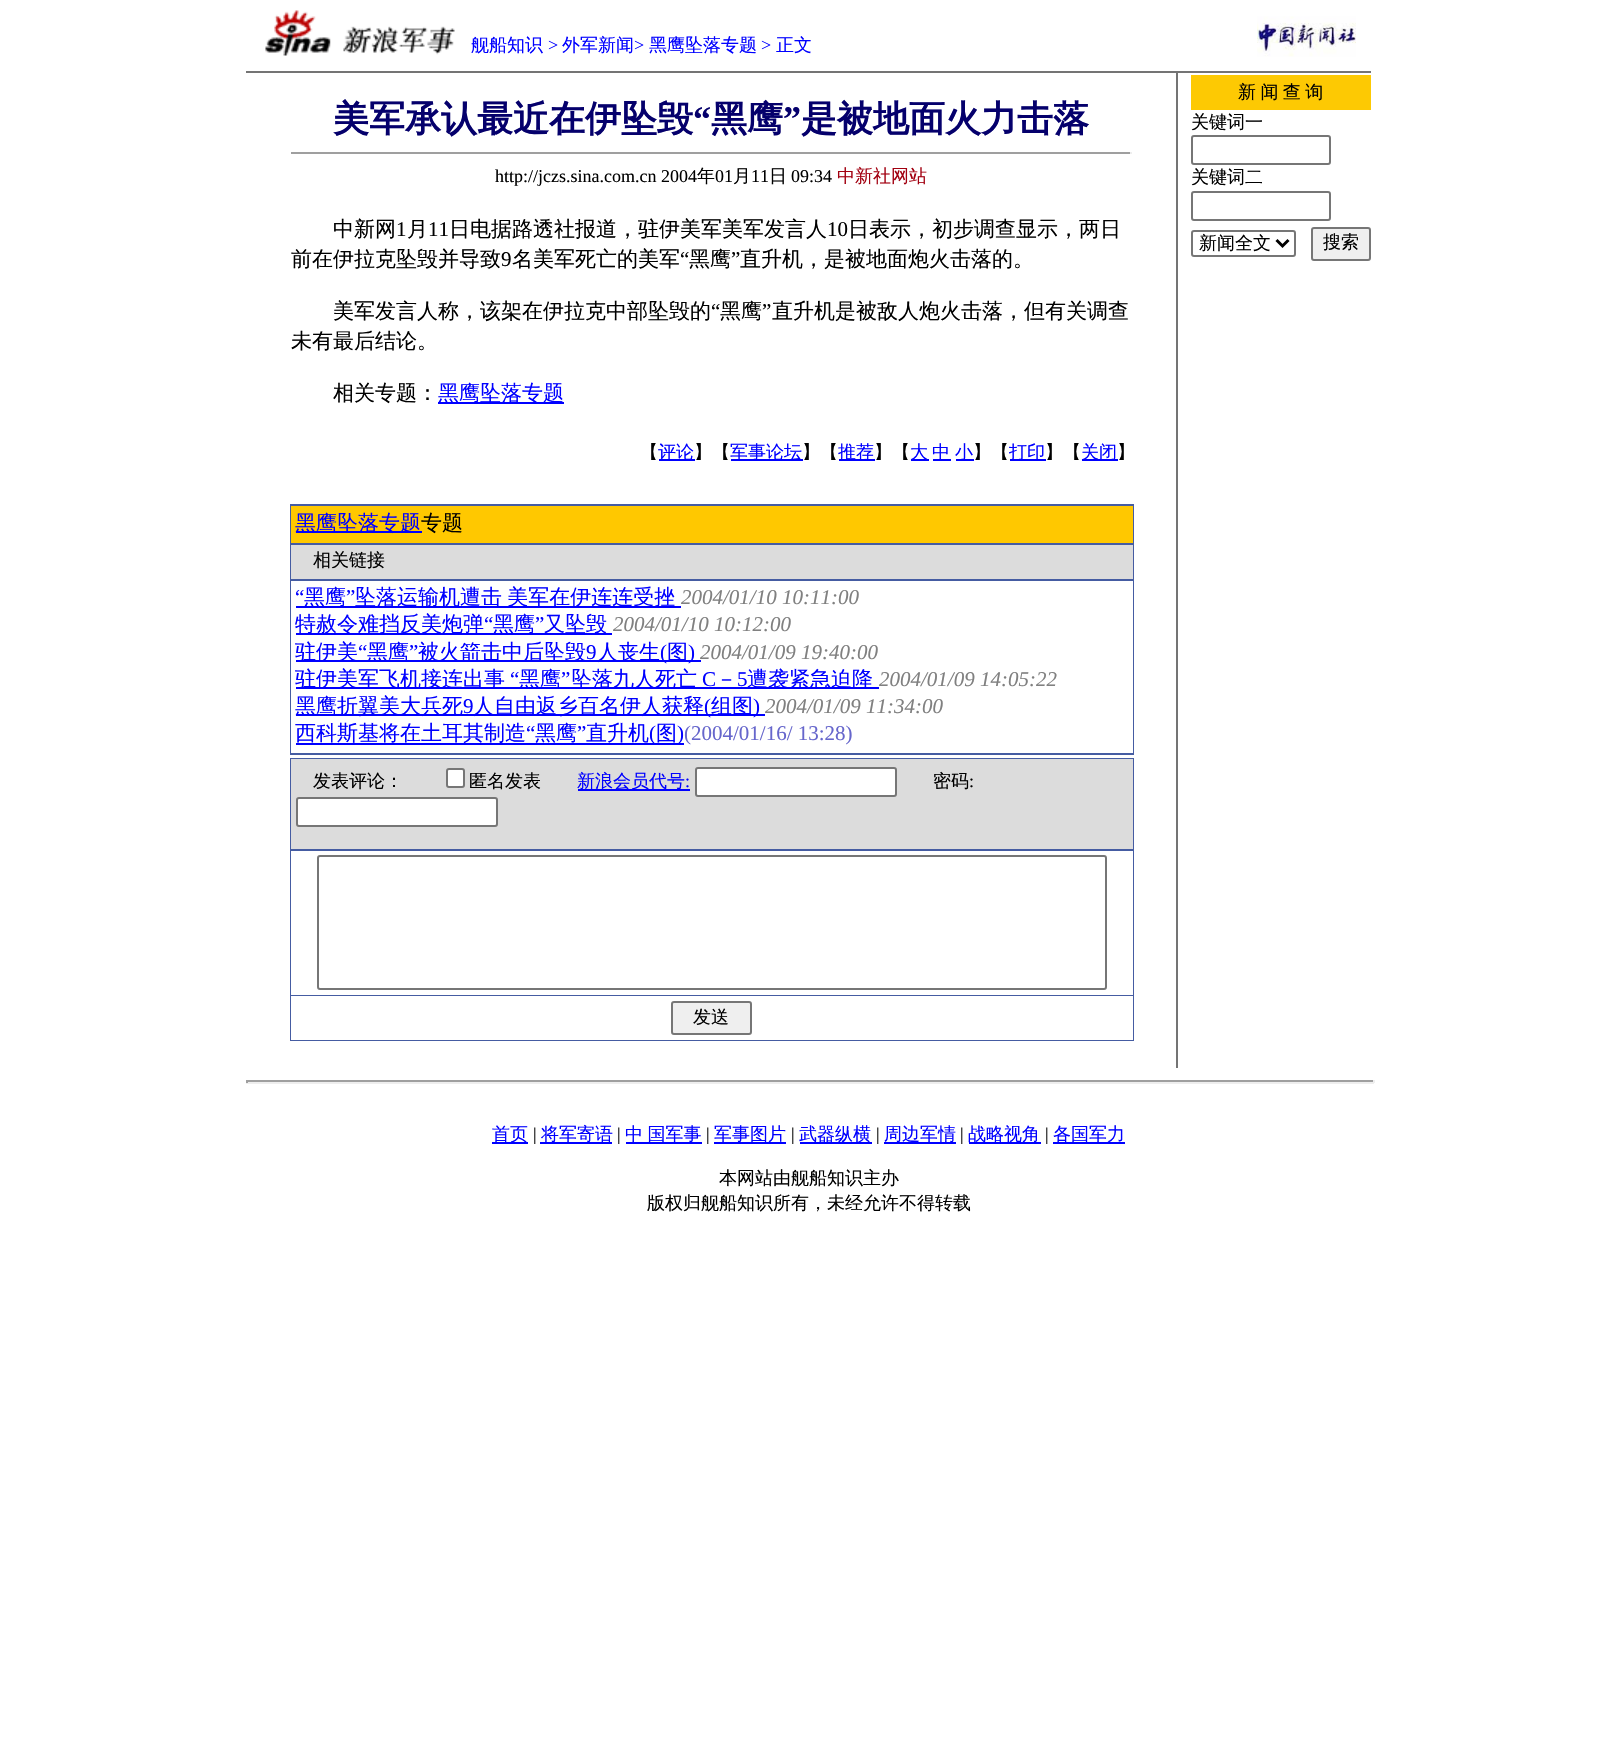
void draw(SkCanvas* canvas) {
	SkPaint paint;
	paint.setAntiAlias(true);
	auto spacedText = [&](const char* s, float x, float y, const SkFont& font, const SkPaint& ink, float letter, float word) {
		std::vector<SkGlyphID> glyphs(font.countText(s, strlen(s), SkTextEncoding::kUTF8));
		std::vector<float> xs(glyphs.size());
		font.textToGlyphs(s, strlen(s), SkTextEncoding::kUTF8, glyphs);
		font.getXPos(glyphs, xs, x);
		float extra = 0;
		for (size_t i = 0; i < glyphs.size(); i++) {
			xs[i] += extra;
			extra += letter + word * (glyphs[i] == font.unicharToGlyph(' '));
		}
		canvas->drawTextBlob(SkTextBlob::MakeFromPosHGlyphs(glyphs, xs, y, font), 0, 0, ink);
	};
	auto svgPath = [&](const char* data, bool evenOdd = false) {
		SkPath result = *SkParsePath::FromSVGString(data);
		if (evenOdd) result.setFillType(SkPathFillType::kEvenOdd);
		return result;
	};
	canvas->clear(0xffffffff);
	canvas->drawImageRect(SkImages::DeferredFromEncodedData(SkData::MakeFromFileName("img1.png")), SkRect::MakeXYWH(265, 10, 190, 46), SkSamplingOptions());
	SkFont f1(fontMgr->matchFamilyStyle("WenQuanYi Zen Hei", SkFontStyle(500, SkFontStyle::kNormal_Width, SkFontStyle::kUpright_Slant)), 18);
	f1.setSubpixel(true);
	paint.setColor(0xff0000ff);
	canvas->drawString("舰船知识", 471, 51, f1, paint);
	SkFont f2(fontMgr->matchFamilyStyle("Liberation Serif", SkFontStyle::Normal()), 18);
	f2.setSubpixel(true);
	canvas->drawString(">", 548, 51, f2, paint);
	canvas->drawString("外军新闻", 562, 51, f1, paint);
	canvas->drawString(">", 634, 51, f2, paint);
	canvas->drawString("黑鹰坠落专题", 649, 51, f1, paint);
	canvas->drawString(">", 761, 51, f2, paint);
	canvas->drawString("正文", 776, 51, f1, paint);
	canvas->drawImageRect(SkImages::DeferredFromEncodedData(SkData::MakeFromFileName("img2.png")), SkRect::MakeXYWH(1257, 16, 99, 41), SkSamplingOptions());
	paint.setColor(0xff747474);
	canvas->drawRect(SkRect::MakeXYWH(246, 71, 1125, 2), paint);
	SkFont f3(fontMgr->matchFamilyStyle("WenQuanYi Zen Hei", SkFontStyle::Bold()), 36);
	f3.setSubpixel(true);
	paint.setColor(0xff05006c);
	canvas->drawString("美军承认最近在伊坠毁", 333, 131, f3, paint);
	SkFont f4(fontMgr->matchFamilyStyle("Liberation Serif", SkFontStyle::Bold()), 36);
	f4.setSubpixel(true);
	canvas->drawString("“", 693, 131, f4, paint);
	canvas->drawString("黑鹰", 711, 131, f3, paint);
	canvas->drawString("”", 783, 131, f4, paint);
	canvas->drawString("是被地面火力击落", 801, 131, f3, paint);
	paint.setColor(0xff9f9f9f);
	canvas->drawRect(SkRect::MakeXYWH(291, 152, 840, 2), paint);
	paint.setColor(0xffeeeeee);
	canvas->drawRect(SkRect::MakeXYWH(1130, 152, 2, 2), paint);
	paint.setColor(0xff000000);
	canvas->drawString("http://jczs.sina.com.cn 2004", 495, 182, f2, paint);
	canvas->drawString("年", 697, 182, f1, paint);
	canvas->drawString("01", 715, 182, f2, paint);
	canvas->drawString("月", 733, 182, f1, paint);
	canvas->drawString("11", 751, 182, f2, paint);
	canvas->drawString("日", 769, 182, f1, paint);
	canvas->drawString("09:34", 791, 182, f2, paint);
	paint.setColor(0xffa20010);
	canvas->drawString("中新社网站", 837, 182, f1, paint);
	SkFont f5(fontMgr->matchFamilyStyle("WenQuanYi Zen Hei", SkFontStyle(500, SkFontStyle::kNormal_Width, SkFontStyle::kUpright_Slant)), 21);
	f5.setSubpixel(true);
	paint.setColor(0xff000000);
	canvas->drawString("中新网", 333, 236, f5, paint);
	SkFont f6(fontMgr->matchFamilyStyle("Liberation Serif", SkFontStyle::Normal()), 21);
	f6.setSubpixel(true);
	canvas->drawString("1", 396, 236, f6, paint);
	canvas->drawString("月", 407, 236, f5, paint);
	canvas->drawString("11", 428, 236, f6, paint);
	canvas->drawString("日电据路透社报道，驻伊美军美军发言人", 449, 236, f5, paint);
	canvas->drawString("10", 827, 236, f6, paint);
	canvas->drawString("日表示，初步调查显示，两日", 848, 236, f5, paint);
	canvas->drawString("前在伊拉克坠毁并导致", 291, 266, f5, paint);
	canvas->drawString("9", 501, 266, f6, paint);
	canvas->drawString("名美军死亡的美军", 512, 266, f5, paint);
	canvas->drawString("“", 680, 266, f6, paint);
	canvas->drawString("黑鹰", 689, 266, f5, paint);
	canvas->drawString("”", 731, 266, f6, paint);
	canvas->drawString("直升机，是被地面炮火击落的。", 740, 266, f5, paint);
	canvas->drawString("美军发言人称，该架在伊拉克中部坠毁的", 333, 318, f5, paint);
	canvas->drawString("“", 711, 318, f6, paint);
	canvas->drawString("黑鹰", 720, 318, f5, paint);
	canvas->drawString("”", 762, 318, f6, paint);
	canvas->drawString("直升机是被敌人炮火击落，但有关调查", 772, 318, f5, paint);
	canvas->drawString("未有最后结论。", 291, 348, f5, paint);
	canvas->drawString("相关专题：", 333, 400, f5, paint);
	paint.setColor(0xff0000ff);
	canvas->drawRect(SkRect::MakeXYWH(438, 402, 126, 2), paint);
	canvas->drawString("黑鹰坠落专题", 438, 400, f5, paint);
	paint.setColor(0xff000000);
	canvas->drawString("【", 640, 458, f1, paint);
	paint.setColor(0xff0000ff);
	canvas->drawRect(SkRect::MakeXYWH(659, 459, 36, 2), paint);
	canvas->drawString("评论", 658, 458, f1, paint);
	paint.setColor(0xff000000);
	canvas->drawString("】【", 694, 458, f1, paint);
	paint.setColor(0xff0000ff);
	canvas->drawRect(SkRect::MakeXYWH(731, 459, 72, 2), paint);
	canvas->drawString("军事论坛", 730, 458, f1, paint);
	paint.setColor(0xff000000);
	canvas->drawString("】【", 802, 458, f1, paint);
	paint.setColor(0xff0000ff);
	canvas->drawRect(SkRect::MakeXYWH(839, 459, 36, 2), paint);
	canvas->drawString("推荐", 838, 458, f1, paint);
	paint.setColor(0xff000000);
	canvas->drawString("】【", 874, 458, f1, paint);
	paint.setColor(0xff0000ff);
	canvas->drawRect(SkRect::MakeXYWH(911, 459, 18, 2), paint);
	canvas->drawString("大", 910, 458, f1, paint);
	canvas->drawRect(SkRect::MakeXYWH(933, 459, 18, 2), paint);
	canvas->drawString("中", 932, 458, f1, paint);
	canvas->drawRect(SkRect::MakeXYWH(956, 459, 18, 2), paint);
	canvas->drawString("小", 955, 458, f1, paint);
	paint.setColor(0xff000000);
	canvas->drawString("】【", 973, 458, f1, paint);
	paint.setColor(0xff0000ff);
	canvas->drawRect(SkRect::MakeXYWH(1010, 459, 36, 2), paint);
	canvas->drawString("打印", 1009, 458, f1, paint);
	paint.setColor(0xff000000);
	canvas->drawString("】【", 1045, 458, f1, paint);
	paint.setColor(0xff0000ff);
	canvas->drawRect(SkRect::MakeXYWH(1082, 459, 36, 2), paint);
	canvas->drawString("关闭", 1081, 458, f1, paint);
	paint.setColor(0xff000000);
	canvas->drawString("】", 1117, 458, f1, paint);
	paint.setColor(0xff747474);
	canvas->drawRect(SkRect::MakeXYWH(1176, 72, 2, 996), paint);
	paint.setColor(0xfffdc903);
	canvas->drawRect(SkRect::MakeXYWH(1191, 75, 180, 35), paint);
	paint.setColor(0xff000000);
	spacedText("新 闻 查 询", 1238, 98, f1, paint, 0, -1);
	canvas->drawString("关键词一", 1191, 128, f1, paint);
	paint.setStroke(true);
	paint.setStrokeWidth(2);
	paint.setColor(0xff767676);
	canvas->drawRoundRect(SkRect::MakeXYWH(1192, 136, 138, 28), 2, 2, paint);
	paint.setStroke(false);
	paint.setColor(0xff000000);
	canvas->drawString("关键词二", 1191, 183, f1, paint);
	paint.setStroke(true);
	paint.setColor(0xff767676);
	canvas->drawRoundRect(SkRect::MakeXYWH(1192, 192, 138, 28), 2, 2, paint);
	canvas->drawRoundRect(SkRect::MakeXYWH(1192, 231, 103, 25), 2, 2, paint);
	paint.setStrokeWidth(3);
	paint.setColor(0xff000000);
	canvas->drawPath(svgPath("M1276.5 240L1282.5 246L1288.5 240"), paint);
	paint.setStroke(false);
	canvas->drawString("新闻全文", 1199, 249, f1, paint);
	paint.setColor(0xffefefef);
	canvas->drawRoundRect(SkRect::MakeXYWH(1312, 228, 58, 32), 2, 2, paint);
	paint.setStroke(true);
	paint.setStrokeWidth(2);
	paint.setColor(0xff767676);
	canvas->drawRoundRect(SkRect::MakeXYWH(1312, 228, 58, 32), 2, 2, paint);
	paint.setStroke(false);
	paint.setColor(0xff000000);
	canvas->drawString("搜索", 1323, 248, f1, paint);
	paint.setColor(0xff455ca2);
	canvas->drawRect(SkRect::MakeXYWH(290, 504, 844, 251), paint);
	paint.setColor(0xffffc800);
	canvas->drawRect(SkRect::MakeXYWH(291, 506, 842, 37), paint);
	paint.setColor(0xff0000ff);
	canvas->drawRect(SkRect::MakeXYWH(296, 531, 126, 2), paint);
	canvas->drawString("黑鹰坠落专题", 295, 530, f5, paint);
	paint.setColor(0xff000000);
	canvas->drawString("专题", 421, 530, f5, paint);
	paint.setColor(0xffdcdcdc);
	canvas->drawRect(SkRect::MakeXYWH(291, 545, 842, 34), paint);
	paint.setColor(0xff000000);
	canvas->drawString("相关链接", 313, 566, f1, paint);
	paint.setColor(0xffffffff);
	canvas->drawRect(SkRect::MakeXYWH(291, 581, 842, 172), paint);
	paint.setColor(0xff0000ff);
	canvas->drawString("“", 295, 604, f6, paint);
	canvas->drawRect(SkRect::MakeXYWH(296, 606, 385, 2), paint);
	canvas->drawString("黑鹰", 304, 604, f5, paint);
	canvas->drawString("”", 346, 604, f6, paint);
	spacedText("坠落运输机遭击 美军在伊连连受挫", 355, 604, f5, paint, 0, -1);
	SkFont f7(fontMgr->matchFamilyStyle("Liberation Serif", SkFontStyle::Italic()), 21);
	f7.setSubpixel(true);
	paint.setColor(0xff808080);
	canvas->drawString("2004/01/10 10:11:00", 681, 604, f7, paint);
	paint.setColor(0xff0000ff);
	canvas->drawRect(SkRect::MakeXYWH(296, 633, 316, 2), paint);
	canvas->drawString("特赦令难挡反美炮弹", 295, 631, f5, paint);
	canvas->drawString("“", 484, 631, f6, paint);
	canvas->drawString("黑鹰", 493, 631, f5, paint);
	canvas->drawString("”", 535, 631, f6, paint);
	canvas->drawString("又坠毁", 544, 631, f5, paint);
	paint.setColor(0xff808080);
	canvas->drawString("2004/01/10 10:12:00", 613, 631, f7, paint);
	paint.setColor(0xff0000ff);
	canvas->drawRect(SkRect::MakeXYWH(296, 660, 405, 2), paint);
	canvas->drawString("驻伊美", 295, 659, f5, paint);
	canvas->drawString("“", 358, 659, f6, paint);
	canvas->drawString("黑鹰", 367, 659, f5, paint);
	canvas->drawString("”", 409, 659, f6, paint);
	canvas->drawString("被火箭击中后坠毁", 418, 659, f5, paint);
	canvas->drawString("9", 586, 659, f6, paint);
	canvas->drawString("人丧生", 597, 659, f5, paint);
	canvas->drawString("(", 660, 659, f6, paint);
	canvas->drawString("图", 667, 659, f5, paint);
	canvas->drawString(")", 688, 659, f6, paint);
	paint.setColor(0xff808080);
	canvas->drawString("2004/01/09 19:40:00", 700, 659, f7, paint);
	paint.setColor(0xff0000ff);
	canvas->drawRect(SkRect::MakeXYWH(296, 687, 583, 2), paint);
	canvas->drawString("驻伊美军飞机接连出事", 295, 686, f5, paint);
	canvas->drawString("“", 510, 686, f6, paint);
	canvas->drawString("黑鹰", 519, 686, f5, paint);
	canvas->drawString("”", 561, 686, f6, paint);
	canvas->drawString("坠落九人死亡", 571, 686, f5, paint);
	canvas->drawString("C", 702, 686, f6, paint);
	canvas->drawString("－", 716, 686, f5, paint);
	canvas->drawString("5", 737, 686, f6, paint);
	canvas->drawString("遭袭紧急迫降", 747, 686, f5, paint);
	paint.setColor(0xff808080);
	canvas->drawString("2004/01/09 14:05:22", 879, 686, f7, paint);
	paint.setColor(0xff0000ff);
	canvas->drawRect(SkRect::MakeXYWH(296, 714, 469, 2), paint);
	canvas->drawString("黑鹰折翼美大兵死", 295, 713, f5, paint);
	canvas->drawString("9", 463, 713, f6, paint);
	canvas->drawString("人自由返乡百名伊人获释", 473, 713, f5, paint);
	canvas->drawString("(", 704, 713, f6, paint);
	canvas->drawString("组图", 711, 713, f5, paint);
	canvas->drawString(")", 753, 713, f6, paint);
	paint.setColor(0xff808080);
	canvas->drawString("2004/01/09 11:34:00", 765, 713, f7, paint);
	paint.setColor(0xff0000ff);
	canvas->drawRect(SkRect::MakeXYWH(296, 743, 388, 2), paint);
	canvas->drawString("西科斯基将在土耳其制造", 295, 740, f5, paint);
	canvas->drawString("“", 526, 740, f6, paint);
	canvas->drawString("黑鹰", 535, 740, f5, paint);
	canvas->drawString("”", 577, 740, f6, paint);
	canvas->drawString("直升机", 586, 740, f5, paint);
	canvas->drawString("(", 649, 740, f6, paint);
	canvas->drawString("图", 656, 740, f5, paint);
	canvas->drawString(")", 677, 740, f6, paint);
	paint.setColor(0xff6666cc);
	canvas->drawString("(2004/01/16/ 13:28)", 684, 740, f6, paint);
	paint.setColor(0xff455ca2);
	canvas->drawRect(SkRect::MakeXYWH(290, 758, 844, 283), paint);
	paint.setColor(0xffdcdcdc);
	canvas->drawRect(SkRect::MakeXYWH(291, 759, 842, 90), paint);
	paint.setColor(0xff000000);
	canvas->drawString("发表评论：", 313, 787, f1, paint);
	paint.setColor(0xffffffff);
	canvas->drawRoundRect(SkRect::MakeXYWH(447, 769, 17, 18), 2, 2, paint);
	paint.setStroke(true);
	paint.setColor(0xff767676);
	canvas->drawRoundRect(SkRect::MakeXYWH(447, 769, 17, 18), 2, 2, paint);
	paint.setStroke(false);
	paint.setColor(0xff000000);
	canvas->drawString("匿名发表", 469, 787, f1, paint);
	paint.setColor(0xff0000ff);
	canvas->drawRect(SkRect::MakeXYWH(578, 789, 112, 2), paint);
	canvas->drawString("新浪会员代号", 577, 787, f1, paint);
	canvas->drawString(":", 685, 787, f2, paint);
	paint.setColor(0xffffffff);
	canvas->drawRoundRect(SkRect::MakeXYWH(696, 768, 200, 28), 2, 2, paint);
	paint.setStroke(true);
	paint.setColor(0xff767676);
	canvas->drawRoundRect(SkRect::MakeXYWH(696, 768, 200, 28), 2, 2, paint);
	paint.setStroke(false);
	paint.setColor(0xff000000);
	canvas->drawString("密码", 933, 787, f1, paint);
	canvas->drawString(":", 969, 787, f2, paint);
	paint.setColor(0xffffffff);
	canvas->drawRoundRect(SkRect::MakeXYWH(297, 798, 200, 28), 2, 2, paint);
	paint.setStroke(true);
	paint.setColor(0xff767676);
	canvas->drawRoundRect(SkRect::MakeXYWH(297, 798, 200, 28), 2, 2, paint);
	paint.setStroke(false);
	paint.setColor(0xffffffff);
	canvas->drawRect(SkRect::MakeXYWH(291, 851, 842, 144), paint);
	paint.setStroke(true);
	paint.setColor(0xff767676);
	canvas->drawRoundRect(SkRect::MakeXYWH(318, 856, 788, 133), 2, 2, paint);
	paint.setStroke(false);
	paint.setColor(0xffffffff);
	canvas->drawRect(SkRect::MakeXYWH(291, 996, 842, 44), paint);
	paint.setColor(0xffefefef);
	canvas->drawRoundRect(SkRect::MakeXYWH(672, 1002, 79, 32), 2, 2, paint);
	paint.setStroke(true);
	paint.setColor(0xff767676);
	canvas->drawRoundRect(SkRect::MakeXYWH(672, 1002, 79, 32), 2, 2, paint);
	paint.setStroke(false);
	paint.setColor(0xff000000);
	canvas->drawString("发送", 693, 1023, f1, paint);
	paint.setColor(0xff9f9f9f);
	canvas->drawRect(SkRect::MakeXYWH(246, 1080, 1128, 2), paint);
	paint.setColor(0xffeeeeee);
	canvas->drawRect(SkRect::MakeXYWH(1373, 1080, 2, 3), paint);
	canvas->drawRect(SkRect::MakeXYWH(246, 1082, 1128, 2), paint);
	paint.setColor(0xff9f9f9f);
	canvas->drawRect(SkRect::MakeXYWH(246, 1080, 2, 3), paint);
	paint.setColor(0xff0000ff);
	canvas->drawRect(SkRect::MakeXYWH(492, 1142, 36, 2), paint);
	canvas->drawString("首页", 492, 1140, f1, paint);
	paint.setColor(0xff000000);
	canvas->drawString("|", 533, 1140, f2, paint);
	paint.setColor(0xff0000ff);
	canvas->drawRect(SkRect::MakeXYWH(540, 1142, 72, 2), paint);
	canvas->drawString("将军寄语", 541, 1140, f1, paint);
	paint.setColor(0xff000000);
	canvas->drawString("|", 617, 1140, f2, paint);
	paint.setColor(0xff0000ff);
	canvas->drawRect(SkRect::MakeXYWH(626, 1142, 76, 2), paint);
	spacedText("中 国军事", 625, 1140, f1, paint, 0, -1);
	paint.setColor(0xff000000);
	canvas->drawString("|", 706, 1140, f2, paint);
	paint.setColor(0xff0000ff);
	canvas->drawRect(SkRect::MakeXYWH(714, 1142, 72, 2), paint);
	canvas->drawString("军事图片", 714, 1140, f1, paint);
	paint.setColor(0xff000000);
	canvas->drawString("|", 791, 1140, f2, paint);
	paint.setColor(0xff0000ff);
	canvas->drawRect(SkRect::MakeXYWH(800, 1142, 72, 2), paint);
	canvas->drawString("武器纵横", 799, 1140, f1, paint);
	paint.setColor(0xff000000);
	canvas->drawString("|", 876, 1140, f2, paint);
	paint.setColor(0xff0000ff);
	canvas->drawRect(SkRect::MakeXYWH(884, 1142, 72, 2), paint);
	canvas->drawString("周边军情", 884, 1140, f1, paint);
	paint.setColor(0xff000000);
	canvas->drawString("|", 960, 1140, f2, paint);
	paint.setColor(0xff0000ff);
	canvas->drawRect(SkRect::MakeXYWH(969, 1142, 72, 2), paint);
	canvas->drawString("战略视角", 968, 1140, f1, paint);
	paint.setColor(0xff000000);
	canvas->drawString("|", 1045, 1140, f2, paint);
	paint.setColor(0xff0000ff);
	canvas->drawRect(SkRect::MakeXYWH(1053, 1142, 72, 2), paint);
	canvas->drawString("各国军力", 1053, 1140, f1, paint);
	paint.setColor(0xff000000);
	canvas->drawString("本网站由舰船知识主办", 719, 1184, f1, paint);
	canvas->drawString("版权归舰船知识所有，未经允许不得转载", 647, 1209, f1, paint);
}
